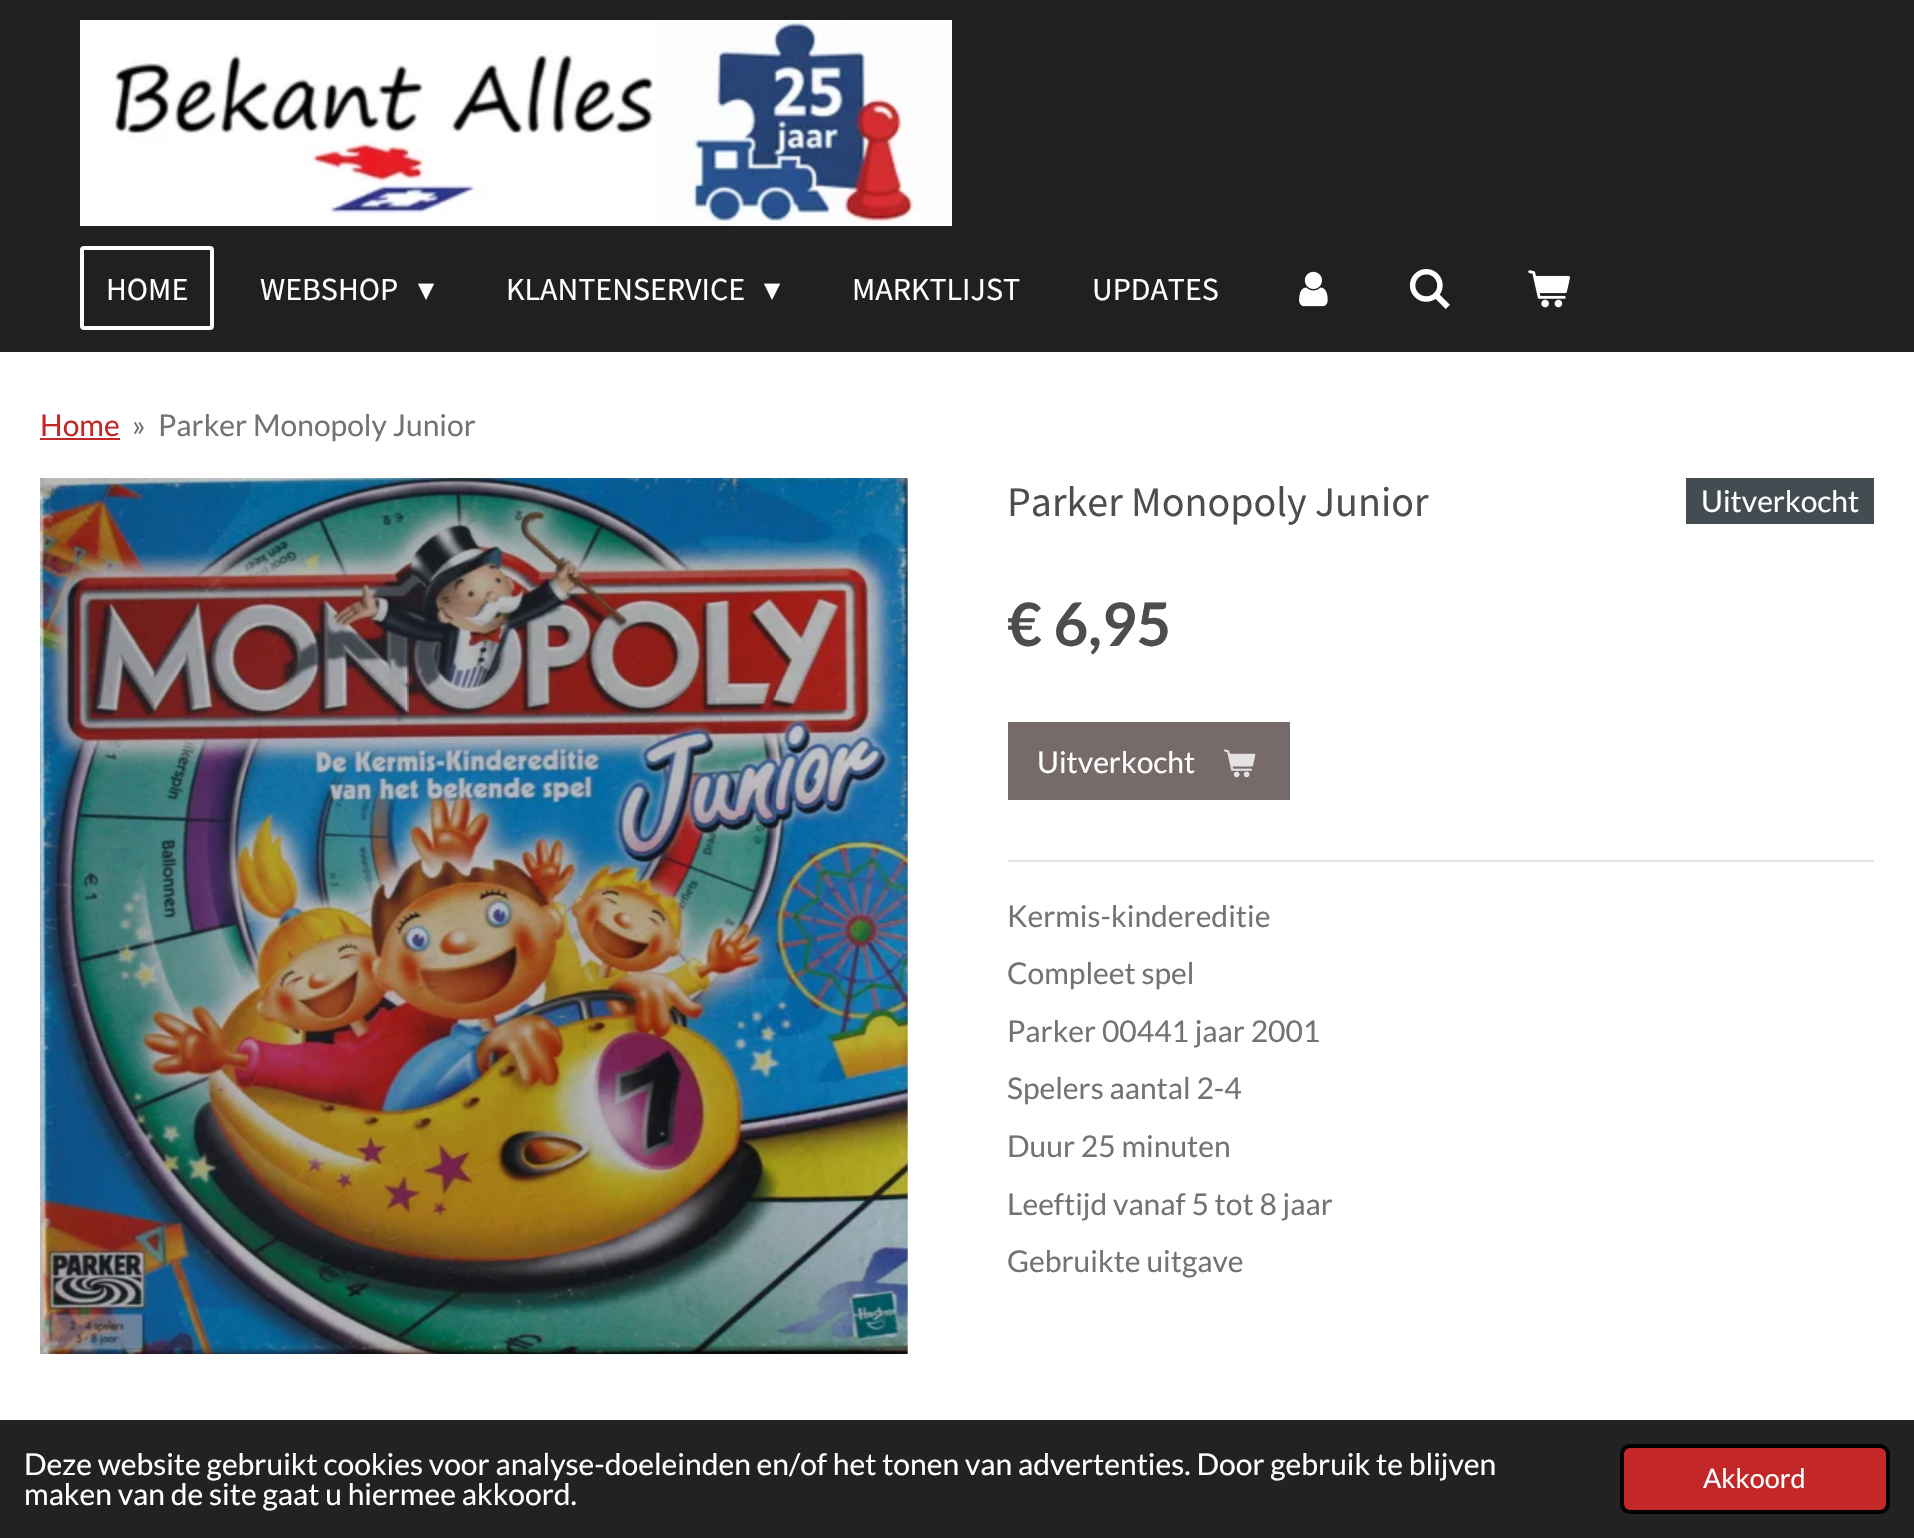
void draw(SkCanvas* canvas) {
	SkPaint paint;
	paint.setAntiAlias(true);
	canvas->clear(0xffffffff);
	paint.setColor(0xff202020);
	canvas->drawRect(SkRect::MakeXYWH(0, 0, 1914, 352), paint);
	canvas->drawImageRect(SkImages::DeferredFromEncodedData(SkData::MakeFromFileName("img1.png")), SkRect::MakeXYWH(80, 20, 872, 206), SkSamplingOptions());
	paint.setStroke(true);
	paint.setStrokeWidth(4);
	paint.setColor(0xffffffff);
	canvas->drawRoundRect(SkRect::MakeXYWH(82, 248, 130, 80), 2, 2, paint);
	SkFont f1(fontMgr->matchFamilyStyle("Source Sans Pro", SkFontStyle::Normal()), 32);
	f1.setSubpixel(true);
	paint.setStroke(false);
	canvas->drawString("HOME", 106, 300, f1, paint);
	canvas->drawString("WEBSHOP", 260, 300, f1, paint);
	SkFont f2(fontMgr->matchFamilyStyle("DejaVu Sans", SkFontStyle::Normal()), 32);
	f2.setSubpixel(true);
	canvas->drawString("▾", 418, 300, f2, paint);
	canvas->drawString("KLANTENSERVICE", 506, 300, f1, paint);
	canvas->drawString("▾", 764, 300, f2, paint);
	canvas->drawString("MARKTLIJST", 852, 300, f1, paint);
	canvas->drawString("UPDATES", 1092, 300, f1, paint);
	canvas->drawImageRect(SkImages::DeferredFromEncodedData(SkData::MakeFromFileName("img2.png")), SkRect::MakeXYWH(1299, 271, 29, 36), SkSamplingOptions());
	canvas->drawImageRect(SkImages::DeferredFromEncodedData(SkData::MakeFromFileName("img3.png")), SkRect::MakeXYWH(1409, 269, 41, 40), SkSamplingOptions());
	canvas->drawImageRect(SkImages::DeferredFromEncodedData(SkData::MakeFromFileName("img4.png")), SkRect::MakeXYWH(1528, 270, 42, 38), SkSamplingOptions());
	SkFont f3(fontMgr->matchFamilyStyle("Lato", SkFontStyle::Normal()), 30);
	f3.setSubpixel(true);
	paint.setColor(0xffc42727);
	canvas->drawString("Home", 40, 436, f3, paint);
	canvas->drawRect(SkRect::MakeXYWH(40, 438, 80, 2), paint);
	paint.setColor(0xff737373);
	canvas->drawString("»", 132, 436, f3, paint);
	canvas->drawString("Parker Monopoly Junior", 158, 436, f3, paint);
	canvas->drawImageRect(SkImages::DeferredFromEncodedData(SkData::MakeFromFileName("img5.png")), SkRect::MakeXYWH(40, 478, 868, 876), SkSamplingOptions());
	SkFont f4(fontMgr->matchFamilyStyle("Source Sans Pro", SkFontStyle::Normal()), 42);
	f4.setSubpixel(true);
	paint.setColor(0xff4d4d4d);
	canvas->drawString("Parker Monopoly Junior", 1007, 516, f4, paint);
	paint.setColor(0xff424c51);
	canvas->drawRect(SkRect::MakeXYWH(1686, 478, 188, 46), paint);
	paint.setColor(0xffffffff);
	canvas->drawString("Uitverkocht", 1701, 512, f3, paint);
	SkFont f5(fontMgr->matchFamilyStyle("Lato", SkFontStyle::Bold()), 60);
	f5.setSubpixel(true);
	paint.setColor(0xff4d4d4d);
	canvas->drawString("€ 6,95", 1007, 646, f5, paint);
	paint.setColor(0xff776a6a);
	canvas->drawRect(SkRect::MakeXYWH(1008, 722, 282, 78), paint);
	paint.setColor(0xffffffff);
	canvas->drawString("Uitverkocht", 1037, 773, f3, paint);
	canvas->drawImageRect(SkImages::DeferredFromEncodedData(SkData::MakeFromFileName("img6.png")), SkRect::MakeXYWH(1224, 749, 32, 29), SkSamplingOptions());
	paint.setColor(0xffe3e3e3);
	canvas->drawRect(SkRect::MakeXYWH(1008, 860, 866, 2), paint);
	paint.setColor(0xff737373);
	canvas->drawString("Kermis-kindereditie", 1007, 927, f3, paint);
	canvas->drawString("Compleet spel", 1007, 984, f3, paint);
	canvas->drawString("Parker 00441 jaar 2001", 1007, 1042, f3, paint);
	canvas->drawString("Spelers aantal 2-4", 1007, 1099, f3, paint);
	canvas->drawString("Duur 25 minuten", 1007, 1157, f3, paint);
	canvas->drawString("Leeftijd vanaf 5 tot 8 jaar", 1007, 1215, f3, paint);
	canvas->drawString("Gebruikte uitgave", 1007, 1272, f3, paint);
	paint.setColor(0xff222222);
	canvas->drawRect(SkRect::MakeXYWH(0, 1420, 1914, 118), paint);
	paint.setColor(0xffffffff);
	canvas->drawString("Deze website gebruikt cookies voor analyse-doeleinden en/of het tonen van advertenties. Door gebruik te blijven", 24, 1475, f3, paint);
	canvas->drawString("maken van de site gaat u hiermee akkoord.", 24, 1505, f3, paint);
	paint.setColor(0xffc42727);
	canvas->drawRoundRect(SkRect::MakeXYWH(1622, 1446, 266, 66), 8, 8, paint);
	paint.setStroke(true);
	paint.setColor(0xff000000);
	canvas->drawRoundRect(SkRect::MakeXYWH(1622, 1446, 266, 66), 8, 8, paint);
	SkFont f6(fontMgr->matchFamilyStyle("Lato", SkFontStyle::Normal()), 27);
	f6.setSubpixel(true);
	paint.setStroke(false);
	paint.setColor(0xffffffff);
	canvas->drawString("Akkoord", 1703, 1488, f6, paint);
}
